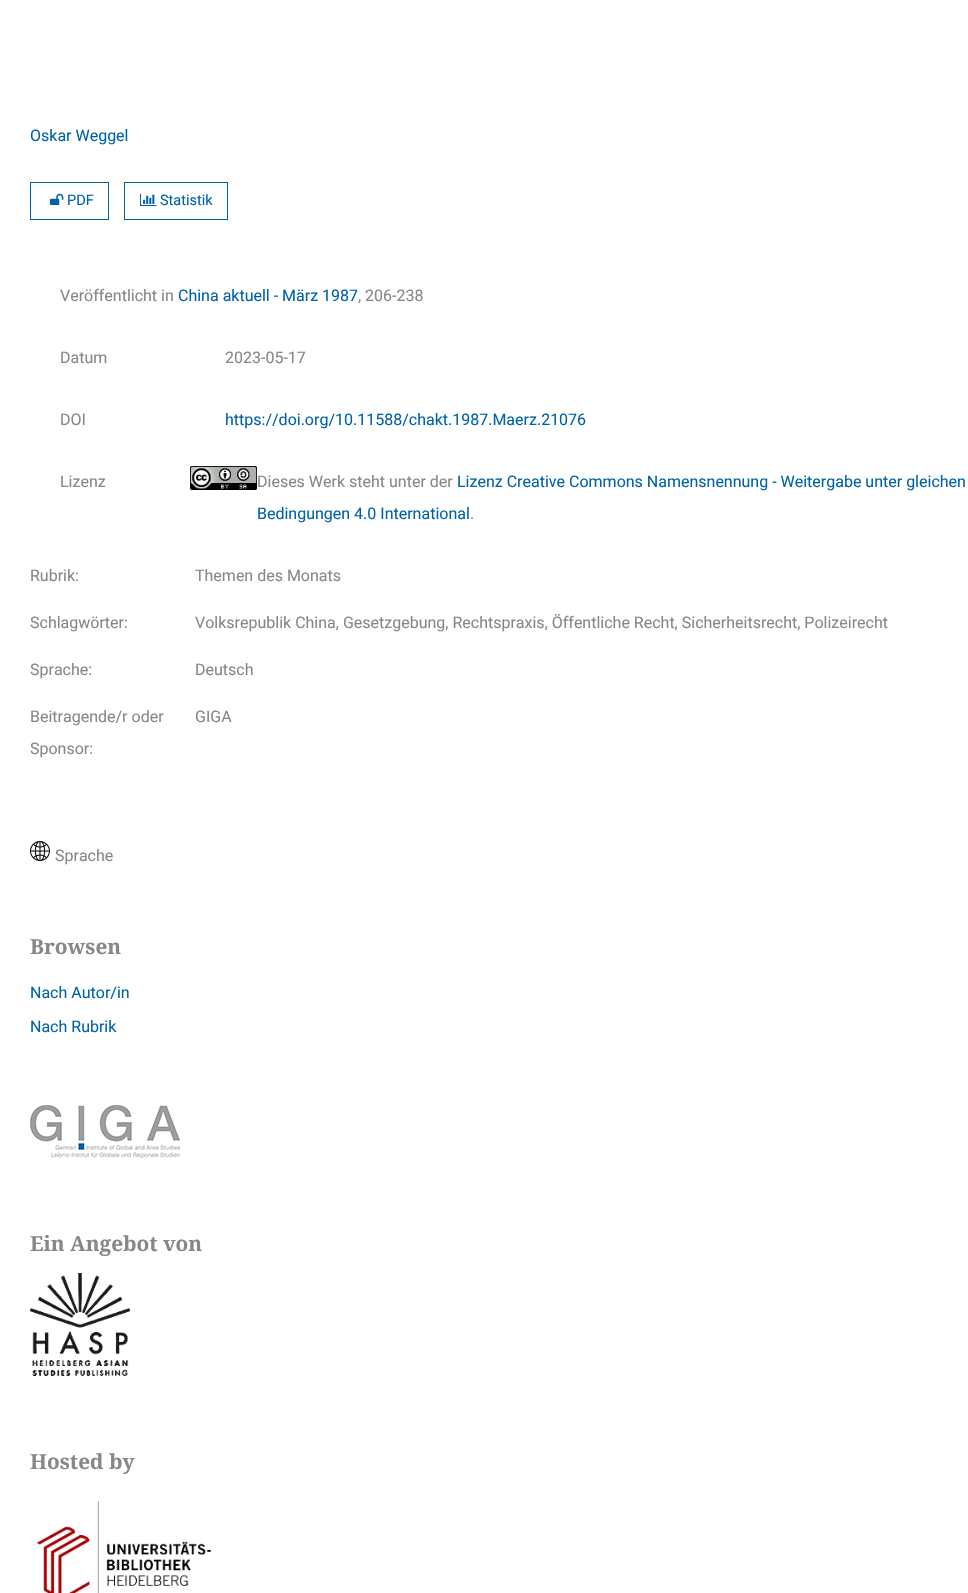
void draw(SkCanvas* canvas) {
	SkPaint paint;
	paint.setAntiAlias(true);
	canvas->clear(0xffffffff);
	SkFont f1(fontMgr->matchFamilyStyle("Roboto", SkFontStyle::Normal()), 16);
	f1.setSubpixel(true);
	paint.setColor(0xff0063a8);
	canvas->drawString("Oskar Weggel", 30, 141, f1, paint);
	paint.setStroke(true);
	paint.setStrokeWidth(1);
	canvas->drawRect(SkRect::MakeXYWH(30.5, 182.5, 78, 37), paint);
	canvas->drawImageRect(SkImages::DeferredFromEncodedData(SkData::MakeFromFileName("img1.png")), SkRect::MakeXYWH(50, 193, 14, 12), SkSamplingOptions());
	SkFont f2(fontMgr->matchFamilyStyle("Roboto", SkFontStyle::Normal()), 14.5);
	f2.setSubpixel(true);
	paint.setStroke(false);
	canvas->drawString("PDF", 67, 205, f2, paint);
	paint.setStroke(true);
	canvas->drawRect(SkRect::MakeXYWH(124.5, 182.5, 103, 37), paint);
	canvas->drawImageRect(SkImages::DeferredFromEncodedData(SkData::MakeFromFileName("img2.png")), SkRect::MakeXYWH(140, 193, 17, 14), SkSamplingOptions());
	paint.setStroke(false);
	canvas->drawString("Statistik", 160, 205, f2, paint);
	paint.setColor(0xff878787);
	canvas->drawString("Veröffentlicht in", 60, 301, f1, paint);
	paint.setColor(0xff0063a8);
	canvas->drawString("China aktuell - März 1987", 178, 301, f1, paint);
	paint.setColor(0xff878787);
	canvas->drawString(", 206-238", 358, 301, f1, paint);
	canvas->drawString("Datum", 60, 363, f1, paint);
	canvas->drawString("2023-05-17", 225, 363, f1, paint);
	canvas->drawString("DOI", 60, 425, f1, paint);
	paint.setColor(0xff0063a8);
	canvas->drawString("https://doi.org/10.11588/chakt.1987.Maerz.21076", 225, 425, f1, paint);
	paint.setColor(0xff878787);
	canvas->drawString("Lizenz", 60, 487, f1, paint);
	canvas->drawImageRect(SkImages::DeferredFromEncodedData(SkData::MakeFromFileName("img3.png")), SkRect::MakeXYWH(190, 466, 67, 24), SkSamplingOptions());
	canvas->drawString("Dieses Werk steht unter der", 257, 487, f1, paint);
	paint.setColor(0xff0063a8);
	canvas->drawString("Lizenz Creative Commons Namensnennung - Weitergabe unter gleichen", 457, 487, f1, paint);
	canvas->drawString("Bedingungen 4.0 International", 257, 519, f1, paint);
	paint.setColor(0xff878787);
	canvas->drawString(".", 470, 519, f1, paint);
	canvas->drawString("Rubrik:", 30, 581, f1, paint);
	canvas->drawString("Themen des Monats", 195, 581, f1, paint);
	canvas->drawString("Schlagwörter:", 30, 628, f1, paint);
	canvas->drawString("Volksrepublik China, Gesetzgebung, Rechtspraxis, Öffentliche Recht, Sicherheitsrecht, Polizeirecht", 195, 628, f1, paint);
	canvas->drawString("Sprache:", 30, 675, f1, paint);
	canvas->drawString("Deutsch", 195, 675, f1, paint);
	canvas->drawString("Beitragende/r oder", 30, 722, f1, paint);
	canvas->drawString("Sponsor:", 30, 754, f1, paint);
	canvas->drawString("GIGA", 195, 722, f1, paint);
	canvas->drawImageRect(SkImages::DeferredFromEncodedData(SkData::MakeFromFileName("img4.png")), SkRect::MakeXYWH(30, 841, 20, 20), SkSamplingOptions());
	canvas->drawString("Sprache", 55, 861, f1, paint);
	SkFont f3(fontMgr->matchFamilyStyle("Noto Serif", SkFontStyle::Bold()), 20.75);
	f3.setSubpixel(true);
	canvas->drawString("Browsen", 30, 954, f3, paint);
	paint.setColor(0xff0063a8);
	canvas->drawString("Nach Autor/in", 30, 998, f1, paint);
	canvas->drawString("Nach Rubrik", 30, 1032, f1, paint);
	canvas->drawImageRect(SkImages::DeferredFromEncodedData(SkData::MakeFromFileName("img5.png")), SkRect::MakeXYWH(30, 1105, 150, 53), SkSamplingOptions());
	paint.setColor(0xff878787);
	canvas->drawString("Ein Angebot von", 30, 1251, f3, paint);
	canvas->drawImageRect(SkImages::DeferredFromEncodedData(SkData::MakeFromFileName("img6.png")), SkRect::MakeXYWH(30, 1273, 100, 103), SkSamplingOptions());
	canvas->drawString("Hosted by", 30, 1469, f3, paint);
	canvas->drawImageRect(SkImages::DeferredFromEncodedData(SkData::MakeFromFileName("img7.png")), SkRect::MakeXYWH(36, 1501, 176, 92), SkSamplingOptions());
}
